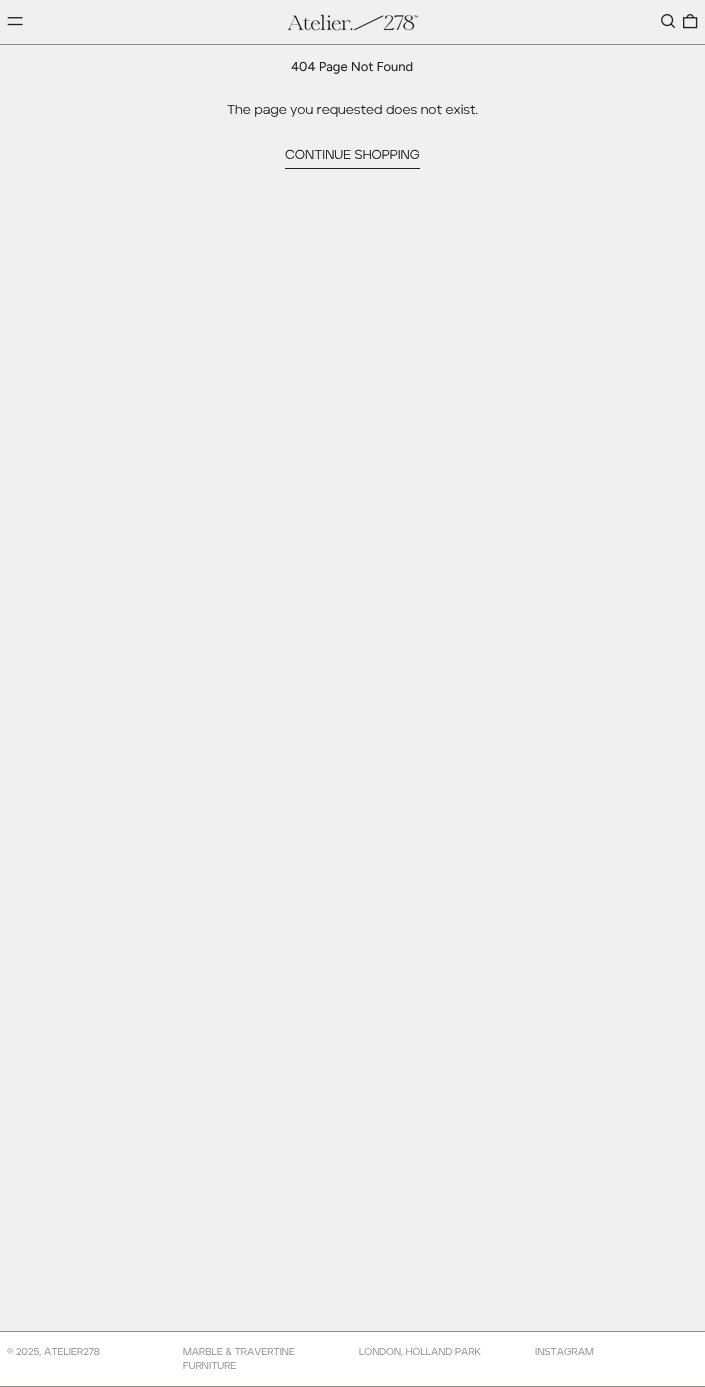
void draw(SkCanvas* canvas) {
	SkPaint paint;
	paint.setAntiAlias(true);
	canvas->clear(0xfff1f0ee);
	paint.setColor(0xff948c82);
	canvas->drawRect(SkRect::MakeXYWH(0, 44, 705, 1), paint);
	canvas->drawImageRect(SkImages::DeferredFromEncodedData(SkData::MakeFromFileName("img1.png")), SkRect::MakeXYWH(7, 17, 16, 9), SkSamplingOptions());
	canvas->drawImageRect(SkImages::DeferredFromEncodedData(SkData::MakeFromFileName("img2.png")), SkRect::MakeXYWH(288, 14, 130, 17), SkSamplingOptions());
	canvas->drawImageRect(SkImages::DeferredFromEncodedData(SkData::MakeFromFileName("img3.png")), SkRect::MakeXYWH(661, 14, 15, 15), SkSamplingOptions());
	canvas->drawImageRect(SkImages::DeferredFromEncodedData(SkData::MakeFromFileName("img4.png")), SkRect::MakeXYWH(683, 14, 15, 15), SkSamplingOptions());
	SkFont f1(fontMgr->matchFamilyStyle("Figtree", SkFontStyle::Normal()), 13);
	f1.setSubpixel(true);
	paint.setColor(0xff212322);
	canvas->drawString("404 Page Not Found", 291, 71, f1, paint);
	SkFont f2(fontMgr->matchFamilyStyle("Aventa", SkFontStyle::Normal()), 13);
	f2.setSubpixel(true);
	canvas->drawString("The page you requested does not exist.", 227, 114, f2, paint);
	canvas->drawRect(SkRect::MakeXYWH(285, 168, 135, 1), paint);
	canvas->drawString("CONTINUE SHOPPING", 285, 159, f2, paint);
	paint.setColor(0xff948c82);
	canvas->drawRect(SkRect::MakeXYWH(0, 1331, 705, 1), paint);
	paint.setColor(0xffffffff);
	canvas->drawRect(SkRect::MakeXYWH(0, 1332, 176, 54), paint);
	SkFont f3(fontMgr->matchFamilyStyle("Aventa", SkFontStyle::Normal()), 10);
	f3.setSubpixel(true);
	paint.setColor(0xff948c82);
	canvas->drawString("© 2025, ATELIER278", 7, 1355, f3, paint);
	paint.setColor(0xffffffff);
	canvas->drawRect(SkRect::MakeXYWH(176, 1332, 529, 54), paint);
	paint.setColor(0xff948c82);
	canvas->drawString("MARBLE & TRAVERTINE", 183, 1355, f3, paint);
	canvas->drawString("FURNITURE", 183, 1369, f3, paint);
	canvas->drawString("LONDON, HOLLAND PARK", 359, 1355, f3, paint);
	canvas->drawString("INSTAGRAM", 535, 1355, f3, paint);
	canvas->drawRect(SkRect::MakeXYWH(0, 1386, 705, 1), paint);
}
